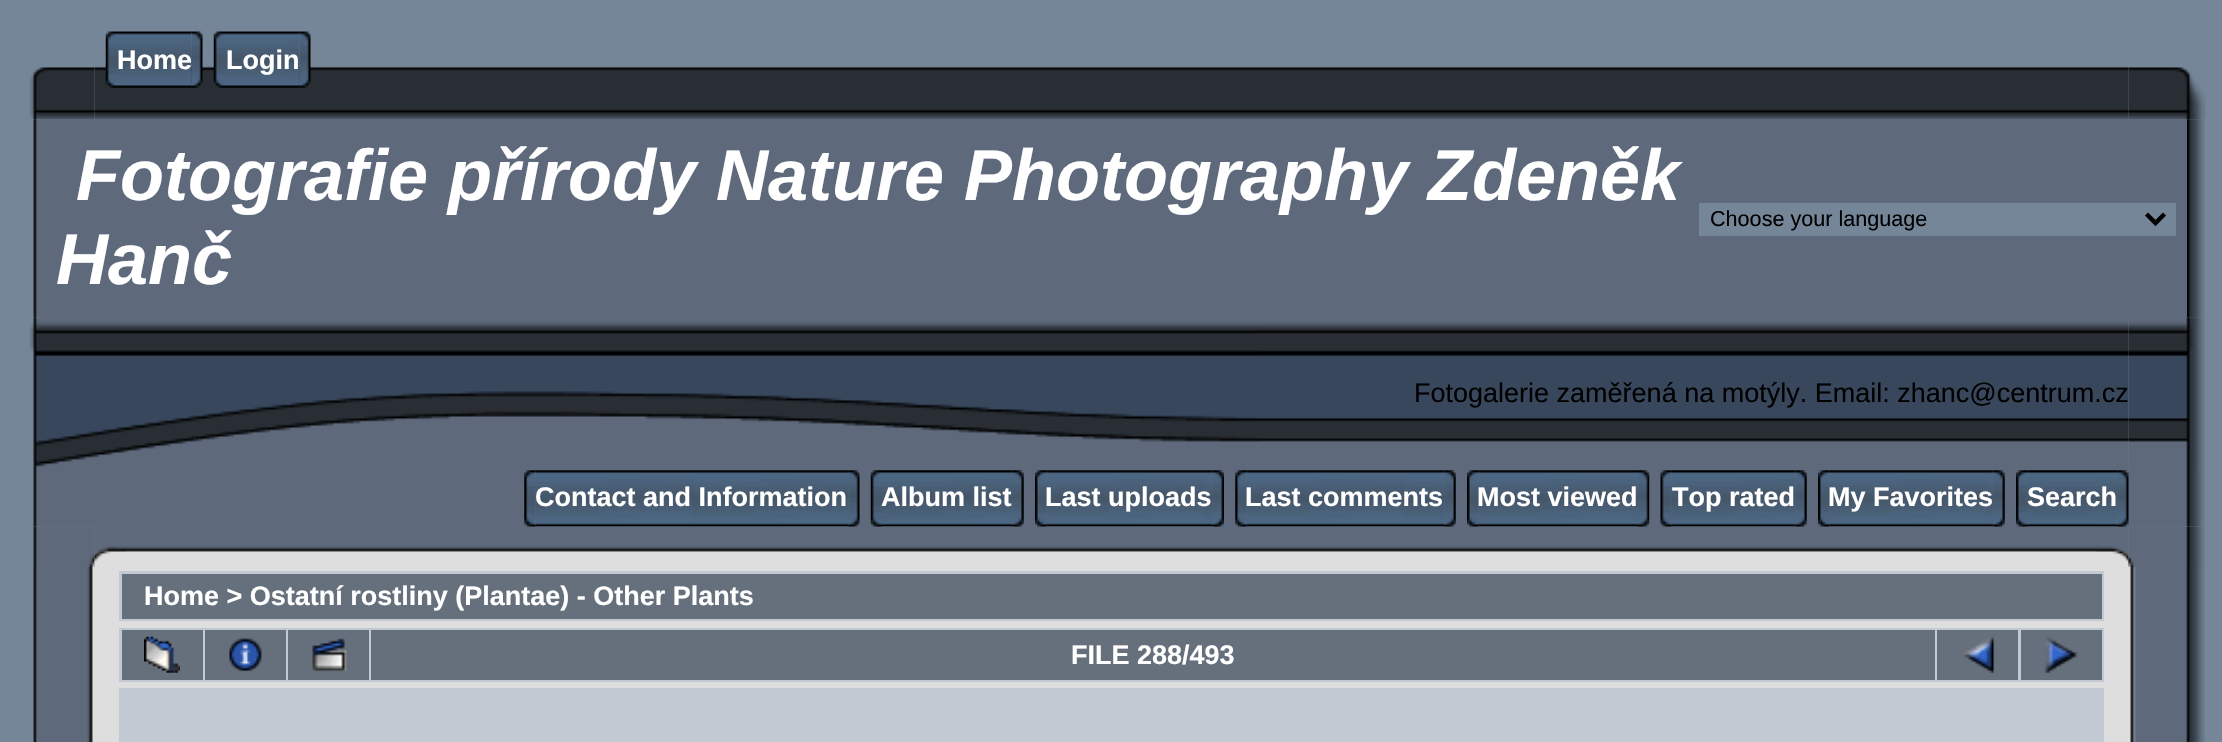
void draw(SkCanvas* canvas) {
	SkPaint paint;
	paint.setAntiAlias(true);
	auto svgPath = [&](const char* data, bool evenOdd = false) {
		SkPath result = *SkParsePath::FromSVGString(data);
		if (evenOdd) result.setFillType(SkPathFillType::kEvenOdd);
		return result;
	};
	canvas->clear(0xff758698);
	canvas->drawImageRect(SkImages::DeferredFromEncodedData(SkData::MakeFromFileName("img8.png")), SkRect::MakeXYWH(29, 67, 66, 53), SkSamplingOptions());
	canvas->drawImageRect(SkImages::DeferredFromEncodedData(SkData::MakeFromFileName("img1.png")), SkRect::MakeXYWH(94, 66, 2035, 53), SkSamplingOptions());
	canvas->drawImageRect(SkImages::DeferredFromEncodedData(SkData::MakeFromFileName("img2.png")), SkRect::MakeXYWH(105, 31, 12, 57), SkSamplingOptions());
	canvas->drawImageRect(SkImages::DeferredFromEncodedData(SkData::MakeFromFileName("img3.png")), SkRect::MakeXYWH(117, 31, 75, 57), SkSamplingOptions());
	SkFont f1(fontMgr->matchFamilyStyle("Liberation Sans", SkFontStyle::Bold()), 27);
	f1.setSubpixel(true);
	paint.setColor(0xffffffff);
	canvas->drawString("Home", 117, 69, f1, paint);
	canvas->drawImageRect(SkImages::DeferredFromEncodedData(SkData::MakeFromFileName("img4.png")), SkRect::MakeXYWH(191, 31, 12, 57), SkSamplingOptions());
	canvas->drawImageRect(SkImages::DeferredFromEncodedData(SkData::MakeFromFileName("img5.png")), SkRect::MakeXYWH(213, 31, 12, 57), SkSamplingOptions());
	canvas->drawImageRect(SkImages::DeferredFromEncodedData(SkData::MakeFromFileName("img6.png")), SkRect::MakeXYWH(225, 31, 75, 57), SkSamplingOptions());
	canvas->drawString("Login", 226, 69, f1, paint);
	canvas->drawImageRect(SkImages::DeferredFromEncodedData(SkData::MakeFromFileName("img7.png")), SkRect::MakeXYWH(299, 31, 12, 57), SkSamplingOptions());
	canvas->drawImageRect(SkImages::DeferredFromEncodedData(SkData::MakeFromFileName("img9.png")), SkRect::MakeXYWH(2128, 67, 78, 53), SkSamplingOptions());
	canvas->drawImageRect(SkImages::DeferredFromEncodedData(SkData::MakeFromFileName("img10.png")), SkRect::MakeXYWH(33, 119, 7, 199), SkSamplingOptions());
	paint.setColor(0xff5e697b);
	canvas->drawRect(SkRect::MakeXYWH(40, 119, 2147, 199), paint);
	SkFont f2(fontMgr->matchFamilyStyle("Liberation Sans", SkFontStyle::BoldItalic()), 72);
	f2.setSubpixel(true);
	paint.setColor(0xffffffff);
	canvas->drawString("Fotografie přírody Nature Photography Zdeněk", 76, 200, f2, paint);
	canvas->drawString("Hanč", 56, 284, f2, paint);
	paint.setColor(0xff758698);
	canvas->drawRect(SkRect::MakeXYWH(1699, 203, 477, 33), paint);
	paint.setStroke(true);
	paint.setStrokeWidth(4.5);
	paint.setColor(0xff000000);
	canvas->drawPath(svgPath("M2146.5 214L2155.5 223L2164.5 214"), paint);
	SkFont f3(fontMgr->matchFamilyStyle("Liberation Sans", SkFontStyle::Normal()), 21.6);
	f3.setSubpixel(true);
	paint.setStroke(false);
	canvas->drawString("Choose your language", 1710, 226, f3, paint);
	canvas->drawImageRect(SkImages::DeferredFromEncodedData(SkData::MakeFromFileName("img11.png")), SkRect::MakeXYWH(2187, 119, 18, 199), SkSamplingOptions());
	canvas->drawImageRect(SkImages::DeferredFromEncodedData(SkData::MakeFromFileName("img12.png")), SkRect::MakeXYWH(29, 317, 1231, 151), SkSamplingOptions());
	canvas->drawImageRect(SkImages::DeferredFromEncodedData(SkData::MakeFromFileName("img13.png")), SkRect::MakeXYWH(1260, 318, 869, 150), SkSamplingOptions());
	SkFont f4(fontMgr->matchFamilyStyle("Liberation Sans", SkFontStyle::Normal()), 27);
	f4.setSubpixel(true);
	canvas->drawString("Fotogalerie zaměřená na motýly. Email: zhanc@centrum.cz", 1414, 402, f4, paint);
	canvas->drawImageRect(SkImages::DeferredFromEncodedData(SkData::MakeFromFileName("img14.png")), SkRect::MakeXYWH(2128, 317, 77, 151), SkSamplingOptions());
	canvas->drawImageRect(SkImages::DeferredFromEncodedData(SkData::MakeFromFileName("img15.png")), SkRect::MakeXYWH(33, 468, 61, 59), SkSamplingOptions());
	paint.setColor(0xff5e697b);
	canvas->drawRect(SkRect::MakeXYWH(94, 468, 2035, 59), paint);
	canvas->drawImageRect(SkImages::DeferredFromEncodedData(SkData::MakeFromFileName("img17.png")), SkRect::MakeXYWH(535, 470, 314, 57), SkSamplingOptions());
	canvas->drawImageRect(SkImages::DeferredFromEncodedData(SkData::MakeFromFileName("img20.png")), SkRect::MakeXYWH(882, 470, 131, 57), SkSamplingOptions());
	canvas->drawImageRect(SkImages::DeferredFromEncodedData(SkData::MakeFromFileName("img23.png")), SkRect::MakeXYWH(1046, 470, 167, 57), SkSamplingOptions());
	canvas->drawImageRect(SkImages::DeferredFromEncodedData(SkData::MakeFromFileName("img26.png")), SkRect::MakeXYWH(1246, 470, 199, 57), SkSamplingOptions());
	canvas->drawImageRect(SkImages::DeferredFromEncodedData(SkData::MakeFromFileName("img29.png")), SkRect::MakeXYWH(1478, 470, 160, 57), SkSamplingOptions());
	canvas->drawImageRect(SkImages::DeferredFromEncodedData(SkData::MakeFromFileName("img32.png")), SkRect::MakeXYWH(1671, 470, 125, 57), SkSamplingOptions());
	canvas->drawImageRect(SkImages::DeferredFromEncodedData(SkData::MakeFromFileName("img33.png")), SkRect::MakeXYWH(1829, 470, 165, 57), SkSamplingOptions());
	canvas->drawImageRect(SkImages::DeferredFromEncodedData(SkData::MakeFromFileName("img36.png")), SkRect::MakeXYWH(2027, 470, 91, 57), SkSamplingOptions());
	canvas->drawImageRect(SkImages::DeferredFromEncodedData(SkData::MakeFromFileName("img41.png")), SkRect::MakeXYWH(126, 526, 1971, 41), SkSamplingOptions());
	canvas->drawImageRect(SkImages::DeferredFromEncodedData(SkData::MakeFromFileName("img16.png")), SkRect::MakeXYWH(524, 470, 12, 57), SkSamplingOptions());
	paint.setColor(0xffffffff);
	canvas->drawString("Contact and Information", 535, 506, f1, paint);
	canvas->drawImageRect(SkImages::DeferredFromEncodedData(SkData::MakeFromFileName("img18.png")), SkRect::MakeXYWH(848, 470, 12, 57), SkSamplingOptions());
	canvas->drawImageRect(SkImages::DeferredFromEncodedData(SkData::MakeFromFileName("img19.png")), SkRect::MakeXYWH(870, 470, 12, 57), SkSamplingOptions());
	canvas->drawString("Album list", 881, 506, f1, paint);
	canvas->drawImageRect(SkImages::DeferredFromEncodedData(SkData::MakeFromFileName("img21.png")), SkRect::MakeXYWH(1012, 470, 12, 57), SkSamplingOptions());
	canvas->drawImageRect(SkImages::DeferredFromEncodedData(SkData::MakeFromFileName("img22.png")), SkRect::MakeXYWH(1035, 470, 12, 57), SkSamplingOptions());
	canvas->drawString("Last uploads", 1045, 506, f1, paint);
	canvas->drawImageRect(SkImages::DeferredFromEncodedData(SkData::MakeFromFileName("img24.png")), SkRect::MakeXYWH(1212, 470, 12, 57), SkSamplingOptions());
	canvas->drawImageRect(SkImages::DeferredFromEncodedData(SkData::MakeFromFileName("img25.png")), SkRect::MakeXYWH(1235, 470, 12, 57), SkSamplingOptions());
	canvas->drawString("Last comments", 1245, 506, f1, paint);
	canvas->drawImageRect(SkImages::DeferredFromEncodedData(SkData::MakeFromFileName("img27.png")), SkRect::MakeXYWH(1444, 470, 12, 57), SkSamplingOptions());
	canvas->drawImageRect(SkImages::DeferredFromEncodedData(SkData::MakeFromFileName("img28.png")), SkRect::MakeXYWH(1467, 470, 12, 57), SkSamplingOptions());
	canvas->drawString("Most viewed", 1477, 506, f1, paint);
	canvas->drawImageRect(SkImages::DeferredFromEncodedData(SkData::MakeFromFileName("img30.png")), SkRect::MakeXYWH(1638, 470, 12, 57), SkSamplingOptions());
	canvas->drawImageRect(SkImages::DeferredFromEncodedData(SkData::MakeFromFileName("img31.png")), SkRect::MakeXYWH(1660, 470, 12, 57), SkSamplingOptions());
	canvas->drawString("Top rated", 1672, 506, f1, paint);
	canvas->drawImageRect(SkImages::DeferredFromEncodedData(SkData::MakeFromFileName("img21.png")), SkRect::MakeXYWH(1795, 470, 12, 57), SkSamplingOptions());
	canvas->drawImageRect(SkImages::DeferredFromEncodedData(SkData::MakeFromFileName("img28.png")), SkRect::MakeXYWH(1818, 470, 12, 57), SkSamplingOptions());
	canvas->drawString("My Favorites", 1828, 506, f1, paint);
	canvas->drawImageRect(SkImages::DeferredFromEncodedData(SkData::MakeFromFileName("img34.png")), SkRect::MakeXYWH(1993, 470, 12, 57), SkSamplingOptions());
	canvas->drawImageRect(SkImages::DeferredFromEncodedData(SkData::MakeFromFileName("img35.png")), SkRect::MakeXYWH(2016, 470, 12, 57), SkSamplingOptions());
	canvas->drawString("Search", 2027, 506, f1, paint);
	canvas->drawImageRect(SkImages::DeferredFromEncodedData(SkData::MakeFromFileName("img42.png")), SkRect::MakeXYWH(2097, 526, 32, 41), SkSamplingOptions());
	canvas->drawImageRect(SkImages::DeferredFromEncodedData(SkData::MakeFromFileName("img38.png")), SkRect::MakeXYWH(2129, 468, 76, 59), SkSamplingOptions());
	canvas->drawImageRect(SkImages::DeferredFromEncodedData(SkData::MakeFromFileName("img43.png")), SkRect::MakeXYWH(2128, 526, 77, 41), SkSamplingOptions());
	canvas->drawImageRect(SkImages::DeferredFromEncodedData(SkData::MakeFromFileName("img37.png")), SkRect::MakeXYWH(2117, 470, 12, 57), SkSamplingOptions());
	canvas->drawImageRect(SkImages::DeferredFromEncodedData(SkData::MakeFromFileName("img39.png")), SkRect::MakeXYWH(33, 526, 62, 41), SkSamplingOptions());
	canvas->drawImageRect(SkImages::DeferredFromEncodedData(SkData::MakeFromFileName("img40.png")), SkRect::MakeXYWH(94, 527, 32, 40), SkSamplingOptions());
	canvas->drawImageRect(SkImages::DeferredFromEncodedData(SkData::MakeFromFileName("img44.png")), SkRect::MakeXYWH(33, 567, 61, 175), SkSamplingOptions());
	paint.setColor(0xffdedede);
	canvas->drawRect(SkRect::MakeXYWH(94, 567, 2035, 175), paint);
	paint.setColor(0xffc2c9d3);
	canvas->drawRect(SkRect::MakeXYWH(119, 571, 1985, 50), paint);
	paint.setColor(0xff66707c);
	canvas->drawRect(SkRect::MakeXYWH(122, 574, 1980, 45), paint);
	paint.setColor(0xffffffff);
	canvas->drawString("Home > Ostatní rostliny (Plantae) - Other Plants", 144, 605, f1, paint);
	paint.setColor(0xffc2c9d3);
	canvas->drawRect(SkRect::MakeXYWH(119, 628, 1985, 54), paint);
	paint.setColor(0xff66707c);
	canvas->drawRect(SkRect::MakeXYWH(122, 630, 81, 50), paint);
	canvas->drawImageRect(SkImages::DeferredFromEncodedData(SkData::MakeFromFileName("img45.png")), SkRect::MakeXYWH(144, 636, 36, 37), SkSamplingOptions());
	canvas->drawRect(SkRect::MakeXYWH(205, 630, 81, 50), paint);
	canvas->drawImageRect(SkImages::DeferredFromEncodedData(SkData::MakeFromFileName("img46.png")), SkRect::MakeXYWH(229, 638, 33, 34), SkSamplingOptions());
	canvas->drawRect(SkRect::MakeXYWH(288, 630, 81, 50), paint);
	canvas->drawImageRect(SkImages::DeferredFromEncodedData(SkData::MakeFromFileName("img47.png")), SkRect::MakeXYWH(312, 638, 35, 34), SkSamplingOptions());
	canvas->drawRect(SkRect::MakeXYWH(371, 630, 1564, 50), paint);
	paint.setColor(0xffffffff);
	canvas->drawString("FILE 288/493", 1071, 664, f1, paint);
	paint.setColor(0xff66707c);
	canvas->drawRect(SkRect::MakeXYWH(1937, 630, 81, 50), paint);
	canvas->drawImageRect(SkImages::DeferredFromEncodedData(SkData::MakeFromFileName("img48.png")), SkRect::MakeXYWH(1962, 636, 33, 37), SkSamplingOptions());
	canvas->drawRect(SkRect::MakeXYWH(2021, 630, 81, 50), paint);
	canvas->drawImageRect(SkImages::DeferredFromEncodedData(SkData::MakeFromFileName("img49.png")), SkRect::MakeXYWH(2044, 636, 34, 37), SkSamplingOptions());
	paint.setColor(0xffc2c9d3);
	canvas->drawRect(SkRect::MakeXYWH(119, 688, 1985, 54), paint);
	canvas->drawImageRect(SkImages::DeferredFromEncodedData(SkData::MakeFromFileName("img50.png")), SkRect::MakeXYWH(2129, 567, 76, 175), SkSamplingOptions());
}
